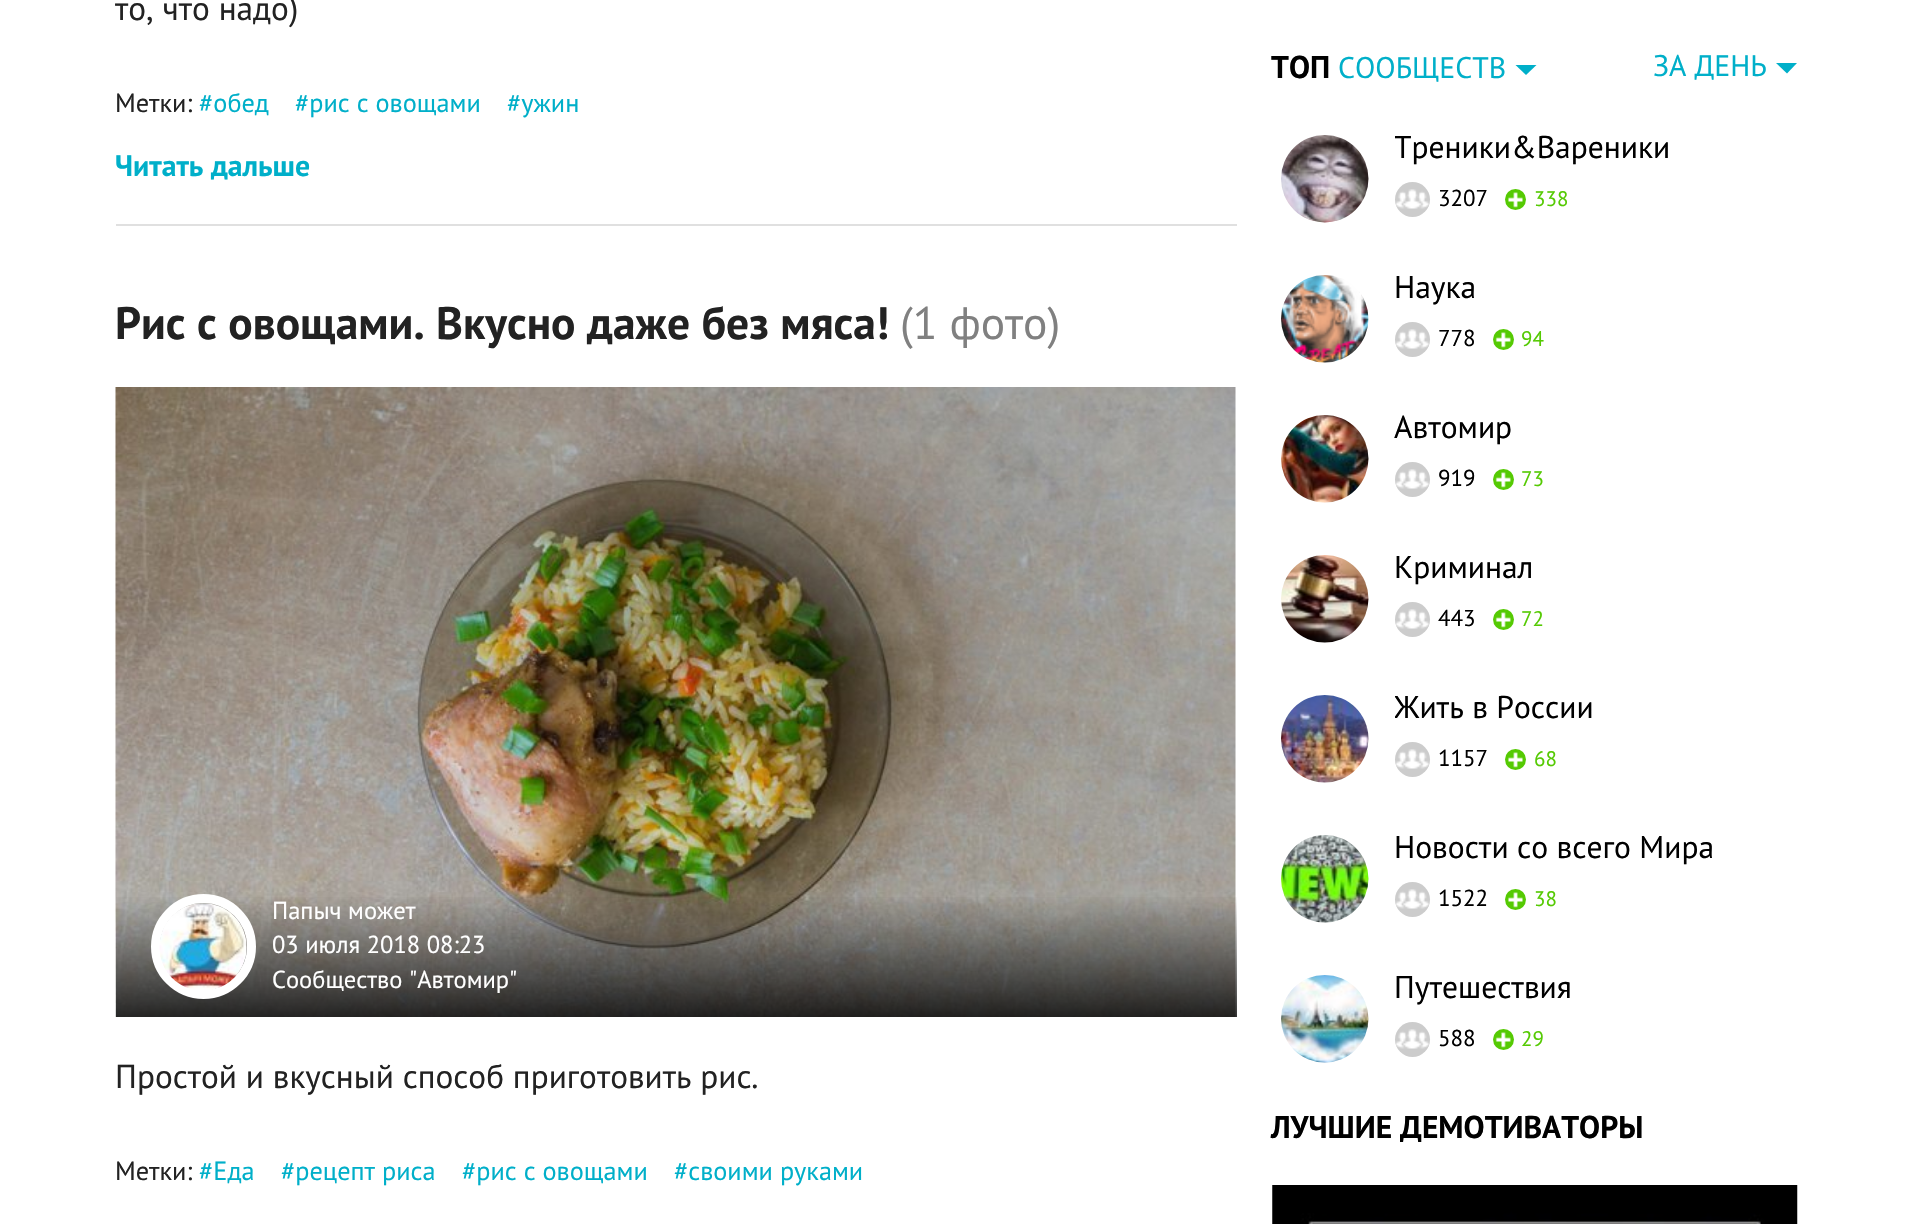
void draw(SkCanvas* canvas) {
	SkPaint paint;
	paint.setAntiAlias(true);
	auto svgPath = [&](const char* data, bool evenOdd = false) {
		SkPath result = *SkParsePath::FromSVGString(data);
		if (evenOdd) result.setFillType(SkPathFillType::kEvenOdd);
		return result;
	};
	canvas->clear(0xffffffff);
	paint.setColor(0xffe0e0e0);
	canvas->drawRect(SkRect::MakeXYWH(116, 224, 1121, 2), paint);
	SkFont f1(fontMgr->matchFamilyStyle("PT Sans", SkFontStyle::Normal()), 33.25);
	f1.setSubpixel(true);
	paint.setColor(0xff222222);
	canvas->drawString("то, что надо)", 115, 20, f1, paint);
	SkFont f2(fontMgr->matchFamilyStyle("PT Sans", SkFontStyle::Normal()), 26.25);
	f2.setSubpixel(true);
	canvas->drawString("Метки:", 115, 112, f2, paint);
	paint.setColor(0xff00afc9);
	canvas->drawString("#обед", 199, 112, f2, paint);
	canvas->drawString("#рис с овощами", 295, 112, f2, paint);
	canvas->drawString("#ужин", 507, 112, f2, paint);
	SkFont f3(fontMgr->matchFamilyStyle("PT Sans", SkFontStyle::Bold()), 29.75);
	f3.setSubpixel(true);
	canvas->drawString("Читать дальше", 115, 176, f3, paint);
	SkFont f4(fontMgr->matchFamilyStyle("PT Sans", SkFontStyle::Bold()), 45.5);
	f4.setSubpixel(true);
	paint.setColor(0xff222222);
	canvas->drawString("Рис с овощами. Вкусно даже без мяса!", 115, 339, f4, paint);
	SkFont f5(fontMgr->matchFamilyStyle("PT Sans", SkFontStyle::Normal()), 45.5);
	f5.setSubpixel(true);
	paint.setColor(0xff808080);
	canvas->drawString("(1 фото)", 900, 339, f5, paint);
	canvas->drawImageRect(SkImages::DeferredFromEncodedData(SkData::MakeFromFileName("img1.png")), SkRect::MakeXYWH(115, 387, 1121, 630), SkSamplingOptions());
	{
		const SkColor colors[] = {0xcc000000, 0x00000000};
		const float stops[] = {0, 1};
		const SkPoint ends[] = {{676, 1017}, {676, 894}};
		paint.setShader(SkGradientShader::MakeLinear(ends, colors, stops, 2, SkTileMode::kClamp));
		paint.setAlpha(255);
	}
	canvas->drawRect(SkRect::MakeXYWH(116, 897, 1121, 120), paint);
	paint.setStroke(true);
	paint.setStrokeWidth(9);
	paint.setShader(nullptr);
	paint.setColor(0xffffffff);
	canvas->drawCircle(203.5, 946.5, 48, paint);
	canvas->drawImageRect(SkImages::DeferredFromEncodedData(SkData::MakeFromFileName("img2.png")), SkRect::MakeXYWH(159, 903, 88, 87), SkSamplingOptions());
	SkFont f6(fontMgr->matchFamilyStyle("PT Sans", SkFontStyle::Normal()), 24.5);
	f6.setSubpixel(true);
	paint.setStroke(false);
	canvas->drawString("Папыч может", 272, 919, f6, paint);
	canvas->drawString("03 июля 2018 08:23", 272, 953, f6, paint);
	canvas->drawString("Сообщество \"Автомир\"", 272, 988, f6, paint);
	paint.setColor(0xff222222);
	canvas->drawString("Простой и вкусный способ приготовить рис.", 115, 1088, f1, paint);
	canvas->drawString("Метки:", 115, 1180, f2, paint);
	paint.setColor(0xff00afc9);
	canvas->drawString("#Еда", 199, 1180, f2, paint);
	canvas->drawString("#рецепт риса", 281, 1180, f2, paint);
	canvas->drawString("#рис с овощами", 462, 1180, f2, paint);
	canvas->drawString("#своими руками", 674, 1180, f2, paint);
	SkFont f7(fontMgr->matchFamilyStyle("PT Sans", SkFontStyle::Bold()), 31.5);
	f7.setSubpixel(true);
	paint.setColor(0xff000000);
	canvas->drawString("ТОП", 1271, 78, f7, paint);
	SkFont f8(fontMgr->matchFamilyStyle("PT Sans", SkFontStyle::Normal()), 29.75);
	f8.setSubpixel(true);
	paint.setColor(0xff00afc9);
	canvas->drawString("СООБЩЕСТВ", 1338, 78, f8, paint);
	canvas->drawPath(svgPath("M1515.5 65H1536.5L1526 75Z"), paint);
	canvas->drawString("ЗА ДЕНЬ", 1653, 76, f8, paint);
	canvas->drawPath(svgPath("M1776 63H1797L1787 73.5Z"), paint);
	canvas->drawImageRect(SkImages::DeferredFromEncodedData(SkData::MakeFromFileName("img3.png")), SkRect::MakeXYWH(1281, 135, 88, 88), SkSamplingOptions());
	canvas->save();
	canvas->clipRect(SkRect::MakeXYWH(1395, 126, 402, 95));
	SkFont f9(fontMgr->matchFamilyStyle("PT Sans", SkFontStyle::Normal()), 31.5);
	f9.setSubpixel(true);
	paint.setColor(0xff000000);
	canvas->drawString("Треники&Вареники", 1394, 158, f9, paint);
	canvas->restore();
	paint.setColor(0xffcccccc);
	canvas->drawCircle(1412.5, 199.5, 17.5, paint);
	canvas->drawImageRect(SkImages::DeferredFromEncodedData(SkData::MakeFromFileName("img4.png")), SkRect::MakeXYWH(1396, 189, 33, 20), SkSamplingOptions());
	SkFont f10(fontMgr->matchFamilyStyle("PT Sans", SkFontStyle::Normal()), 23);
	f10.setSubpixel(true);
	paint.setColor(0xff000000);
	canvas->drawString("3207", 1438, 206, f10, paint);
	paint.setColor(0xff55ca03);
	canvas->drawCircle(1515.5, 199.5, 10.5, paint);
	canvas->drawImageRect(SkImages::DeferredFromEncodedData(SkData::MakeFromFileName("img5.png")), SkRect::MakeXYWH(1508, 192, 15, 16), SkSamplingOptions());
	SkFont f11(fontMgr->matchFamilyStyle("PT Sans", SkFontStyle::Normal()), 21);
	f11.setSubpixel(true);
	canvas->drawString("338", 1534, 206, f11, paint);
	canvas->drawImageRect(SkImages::DeferredFromEncodedData(SkData::MakeFromFileName("img6.png")), SkRect::MakeXYWH(1281, 275, 88, 88), SkSamplingOptions());
	paint.setColor(0xff000000);
	canvas->drawString("Наука", 1394, 298, f9, paint);
	paint.setColor(0xffcccccc);
	canvas->drawCircle(1412.5, 339.5, 17.5, paint);
	canvas->drawImageRect(SkImages::DeferredFromEncodedData(SkData::MakeFromFileName("img4.png")), SkRect::MakeXYWH(1396, 329, 33, 20), SkSamplingOptions());
	paint.setColor(0xff000000);
	canvas->drawString("778", 1438, 346, f10, paint);
	paint.setColor(0xff55ca03);
	canvas->drawCircle(1503.5, 339.5, 10.5, paint);
	canvas->drawImageRect(SkImages::DeferredFromEncodedData(SkData::MakeFromFileName("img7.png")), SkRect::MakeXYWH(1495, 332, 16, 16), SkSamplingOptions());
	canvas->drawString("94", 1521, 346, f11, paint);
	canvas->drawImageRect(SkImages::DeferredFromEncodedData(SkData::MakeFromFileName("img8.png")), SkRect::MakeXYWH(1281, 415, 88, 88), SkSamplingOptions());
	paint.setColor(0xff000000);
	canvas->drawString("Автомир", 1394, 438, f9, paint);
	paint.setColor(0xffcccccc);
	canvas->drawCircle(1412.5, 479.5, 17.5, paint);
	canvas->drawImageRect(SkImages::DeferredFromEncodedData(SkData::MakeFromFileName("img9.png")), SkRect::MakeXYWH(1396, 469, 33, 20), SkSamplingOptions());
	paint.setColor(0xff000000);
	canvas->drawString("919", 1438, 486, f10, paint);
	paint.setColor(0xff55ca03);
	canvas->drawCircle(1503.5, 479.5, 10.5, paint);
	canvas->drawImageRect(SkImages::DeferredFromEncodedData(SkData::MakeFromFileName("img7.png")), SkRect::MakeXYWH(1495, 472, 16, 16), SkSamplingOptions());
	canvas->drawString("73", 1521, 486, f11, paint);
	canvas->drawImageRect(SkImages::DeferredFromEncodedData(SkData::MakeFromFileName("img10.png")), SkRect::MakeXYWH(1281, 555, 88, 88), SkSamplingOptions());
	paint.setColor(0xff000000);
	canvas->drawString("Криминал", 1394, 578, f9, paint);
	paint.setColor(0xffcccccc);
	canvas->drawCircle(1412.5, 619.5, 17.5, paint);
	canvas->drawImageRect(SkImages::DeferredFromEncodedData(SkData::MakeFromFileName("img4.png")), SkRect::MakeXYWH(1396, 609, 33, 20), SkSamplingOptions());
	paint.setColor(0xff000000);
	canvas->drawString("443", 1438, 626, f10, paint);
	paint.setColor(0xff55ca03);
	canvas->drawCircle(1503.5, 619.5, 10.5, paint);
	canvas->drawImageRect(SkImages::DeferredFromEncodedData(SkData::MakeFromFileName("img7.png")), SkRect::MakeXYWH(1495, 612, 16, 16), SkSamplingOptions());
	canvas->drawString("72", 1521, 626, f11, paint);
	canvas->drawImageRect(SkImages::DeferredFromEncodedData(SkData::MakeFromFileName("img11.png")), SkRect::MakeXYWH(1281, 695, 88, 88), SkSamplingOptions());
	canvas->save();
	canvas->clipRect(SkRect::MakeXYWH(1395, 686, 402, 95));
	paint.setColor(0xff000000);
	canvas->drawString("Жить в России", 1394, 718, f9, paint);
	canvas->restore();
	paint.setColor(0xffcccccc);
	canvas->drawCircle(1412.5, 759.5, 17.5, paint);
	canvas->drawImageRect(SkImages::DeferredFromEncodedData(SkData::MakeFromFileName("img4.png")), SkRect::MakeXYWH(1396, 749, 33, 20), SkSamplingOptions());
	paint.setColor(0xff000000);
	canvas->drawString("1157", 1438, 766, f10, paint);
	paint.setColor(0xff55ca03);
	canvas->drawCircle(1515.5, 759.5, 10.5, paint);
	canvas->drawImageRect(SkImages::DeferredFromEncodedData(SkData::MakeFromFileName("img5.png")), SkRect::MakeXYWH(1508, 752, 15, 16), SkSamplingOptions());
	canvas->drawString("68", 1534, 766, f11, paint);
	canvas->drawImageRect(SkImages::DeferredFromEncodedData(SkData::MakeFromFileName("img12.png")), SkRect::MakeXYWH(1281, 835, 88, 88), SkSamplingOptions());
	paint.setColor(0xff000000);
	canvas->drawString("Новости со всего Мира", 1394, 858, f9, paint);
	paint.setColor(0xffcccccc);
	canvas->drawCircle(1412.5, 899.5, 17.5, paint);
	canvas->drawImageRect(SkImages::DeferredFromEncodedData(SkData::MakeFromFileName("img4.png")), SkRect::MakeXYWH(1396, 889, 33, 20), SkSamplingOptions());
	paint.setColor(0xff000000);
	canvas->drawString("1522", 1438, 906, f10, paint);
	paint.setColor(0xff55ca03);
	canvas->drawCircle(1515.5, 899.5, 10.5, paint);
	canvas->drawImageRect(SkImages::DeferredFromEncodedData(SkData::MakeFromFileName("img5.png")), SkRect::MakeXYWH(1508, 892, 15, 16), SkSamplingOptions());
	canvas->drawString("38", 1534, 906, f11, paint);
	canvas->drawImageRect(SkImages::DeferredFromEncodedData(SkData::MakeFromFileName("img13.png")), SkRect::MakeXYWH(1281, 975, 88, 88), SkSamplingOptions());
	paint.setColor(0xff000000);
	canvas->drawString("Путешествия", 1394, 998, f9, paint);
	paint.setColor(0xffcccccc);
	canvas->drawCircle(1412.5, 1039.5, 17.5, paint);
	canvas->drawImageRect(SkImages::DeferredFromEncodedData(SkData::MakeFromFileName("img4.png")), SkRect::MakeXYWH(1396, 1029, 33, 20), SkSamplingOptions());
	paint.setColor(0xff000000);
	canvas->drawString("588", 1438, 1046, f10, paint);
	paint.setColor(0xff55ca03);
	canvas->drawCircle(1503.5, 1039.5, 10.5, paint);
	canvas->drawImageRect(SkImages::DeferredFromEncodedData(SkData::MakeFromFileName("img7.png")), SkRect::MakeXYWH(1495, 1032, 16, 16), SkSamplingOptions());
	canvas->drawString("29", 1521, 1046, f11, paint);
	paint.setColor(0xff000000);
	canvas->drawString("ЛУЧШИЕ ДЕМОТИВАТОРЫ", 1271, 1138, f7, paint);
	canvas->drawImageRect(SkImages::DeferredFromEncodedData(SkData::MakeFromFileName("img14.png")), SkRect::MakeXYWH(1272, 1185, 526, 39), SkSamplingOptions());
}
